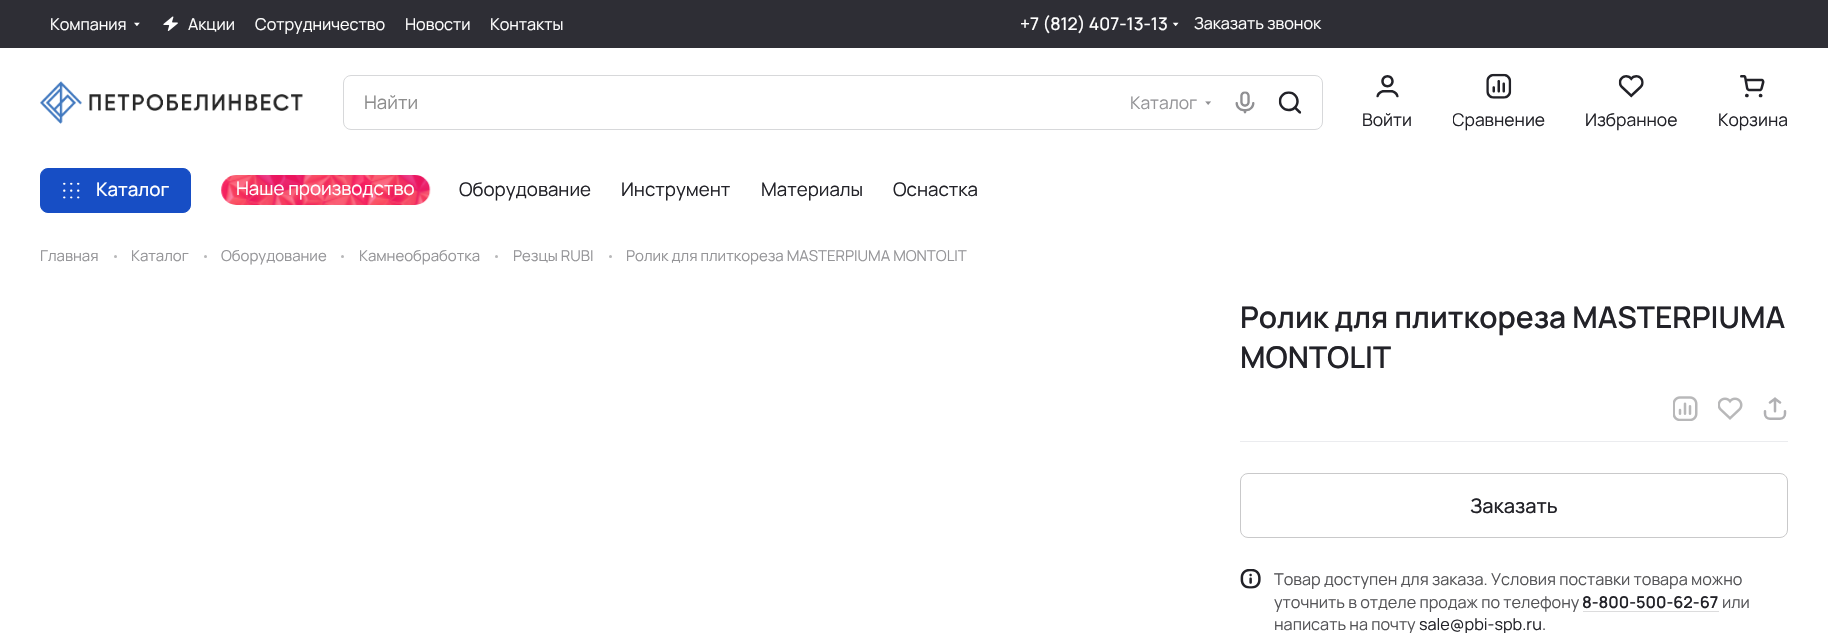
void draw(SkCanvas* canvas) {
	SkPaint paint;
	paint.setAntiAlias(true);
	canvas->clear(0xffffffff);
	paint.setColor(0xff2e2e35);
	canvas->drawRect(SkRect::MakeXYWH(0, 0, 1828, 48), paint);
	SkFont f1(fontMgr->matchFamilyStyle("Manrope", SkFontStyle(200, SkFontStyle::kNormal_Width, SkFontStyle::kUpright_Slant)), 16.25);
	f1.setSubpixel(true);
	paint.setColor(0xffffffff);
	canvas->drawString("Компания", 50, 30, f1, paint);
	canvas->drawImageRect(SkImages::DeferredFromEncodedData(SkData::MakeFromFileName("img1.png")), SkRect::MakeXYWH(134, 22, 6, 4), SkSamplingOptions());
	canvas->drawImageRect(SkImages::DeferredFromEncodedData(SkData::MakeFromFileName("img2.png")), SkRect::MakeXYWH(163, 16, 15, 15), SkSamplingOptions());
	canvas->drawString("Акции", 188, 30, f1, paint);
	canvas->drawString("Сотрудничество", 255, 30, f1, paint);
	canvas->drawString("Новости", 405, 30, f1, paint);
	canvas->drawString("Контакты", 490, 30, f1, paint);
	SkFont f2(fontMgr->matchFamilyStyle("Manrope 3", SkFontStyle(200, SkFontStyle::kNormal_Width, SkFontStyle::kUpright_Slant)), 17.5);
	f2.setSubpixel(true);
	canvas->drawString("+7 (812) 407-13-13", 1020, 30, f2, paint);
	canvas->drawImageRect(SkImages::DeferredFromEncodedData(SkData::MakeFromFileName("img3.png")), SkRect::MakeXYWH(1172, 22, 7, 4), SkSamplingOptions());
	canvas->drawString("Заказать звонок", 1194, 29, f1, paint);
	canvas->drawImageRect(SkImages::DeferredFromEncodedData(SkData::MakeFromFileName("img4.png")), SkRect::MakeXYWH(40, 81, 263, 43), SkSamplingOptions());
	paint.setStroke(true);
	paint.setStrokeWidth(1);
	paint.setColor(0xffd7d8da);
	canvas->drawRoundRect(SkRect::MakeXYWH(343.5, 75.5, 979, 54), 7.5, 7.5, paint);
	SkFont f3(fontMgr->matchFamilyStyle("Manrope", SkFontStyle(200, SkFontStyle::kNormal_Width, SkFontStyle::kUpright_Slant)), 18.75);
	f3.setSubpixel(true);
	paint.setStroke(false);
	paint.setColor(0xff8d8d8d);
	canvas->drawString("Найти", 364, 109, f3, paint);
	SkFont f4(fontMgr->matchFamilyStyle("Manrope", SkFontStyle(200, SkFontStyle::kNormal_Width, SkFontStyle::kUpright_Slant)), 17.5);
	f4.setSubpixel(true);
	paint.setColor(0xff959598);
	canvas->drawString("Каталог", 1130, 109, f4, paint);
	canvas->drawImageRect(SkImages::DeferredFromEncodedData(SkData::MakeFromFileName("img5.png")), SkRect::MakeXYWH(1205, 101, 6, 4), SkSamplingOptions());
	canvas->drawImageRect(SkImages::DeferredFromEncodedData(SkData::MakeFromFileName("img6.png")), SkRect::MakeXYWH(1235, 91, 20, 23), SkSamplingOptions());
	canvas->drawImageRect(SkImages::DeferredFromEncodedData(SkData::MakeFromFileName("img7.png")), SkRect::MakeXYWH(1278, 91, 24, 23), SkSamplingOptions());
	canvas->drawImageRect(SkImages::DeferredFromEncodedData(SkData::MakeFromFileName("img8.png")), SkRect::MakeXYWH(1376, 75, 23, 23), SkSamplingOptions());
	paint.setColor(0xff222228);
	canvas->drawString("Войти", 1362, 126, f4, paint);
	canvas->drawImageRect(SkImages::DeferredFromEncodedData(SkData::MakeFromFileName("img9.png")), SkRect::MakeXYWH(1486, 73, 26, 26), SkSamplingOptions());
	canvas->save();
	canvas->clipRect(SkRect::MakeXYWH(1453, 99, 92, 32));
	canvas->drawString("Сравнение", 1452, 126, f4, paint);
	canvas->restore();
	canvas->drawImageRect(SkImages::DeferredFromEncodedData(SkData::MakeFromFileName("img10.png")), SkRect::MakeXYWH(1618, 75, 26, 23), SkSamplingOptions());
	canvas->drawString("Избранное", 1585, 126, f4, paint);
	canvas->drawImageRect(SkImages::DeferredFromEncodedData(SkData::MakeFromFileName("img11.png")), SkRect::MakeXYWH(1740, 75, 25, 23), SkSamplingOptions());
	canvas->drawString("Корзина", 1718, 126, f4, paint);
	paint.setColor(0xff174ec5);
	canvas->drawRoundRect(SkRect::MakeXYWH(40.5, 168.5, 150, 44), 7.5, 7.5, paint);
	paint.setStroke(true);
	canvas->drawRoundRect(SkRect::MakeXYWH(40.5, 168.5, 150, 44), 7.5, 7.5, paint);
	canvas->drawImageRect(SkImages::DeferredFromEncodedData(SkData::MakeFromFileName("img12.png")), SkRect::MakeXYWH(63, 182, 17, 17), SkSamplingOptions());
	SkFont f5(fontMgr->matchFamilyStyle("Manrope 3", SkFontStyle(200, SkFontStyle::kNormal_Width, SkFontStyle::kUpright_Slant)), 18.75);
	f5.setSubpixel(true);
	paint.setStroke(false);
	paint.setColor(0xffffffff);
	canvas->drawString("Каталог", 96, 196, f5, paint);
	canvas->drawImageRect(SkImages::DeferredFromEncodedData(SkData::MakeFromFileName("img13.png")), SkRect::MakeXYWH(221, 175, 210, 30), SkSamplingOptions());
	canvas->drawString("Наше производство", 236, 195, f3, paint);
	paint.setColor(0xff222228);
	canvas->drawString("Оборудование", 459, 196, f3, paint);
	canvas->drawString("Инструмент", 621, 196, f3, paint);
	canvas->drawString("Материалы", 761, 196, f3, paint);
	canvas->drawString("Оснастка", 893, 196, f3, paint);
	SkFont f6(fontMgr->matchFamilyStyle("Manrope", SkFontStyle(200, SkFontStyle::kNormal_Width, SkFontStyle::kUpright_Slant)), 15);
	f6.setSubpixel(true);
	paint.setColor(0xff959598);
	canvas->drawString("Главная", 40, 261, f6, paint);
	paint.setColor(0xffb8b8b9);
	canvas->drawCircle(115.5, 256.5, 1.5, paint);
	paint.setColor(0xff959598);
	canvas->drawString("Каталог", 131, 261, f6, paint);
	paint.setColor(0xffb8b8b9);
	canvas->drawCircle(205.5, 256.5, 1.5, paint);
	paint.setColor(0xff959598);
	canvas->drawString("Оборудование", 221, 261, f6, paint);
	paint.setColor(0xffb8b8b9);
	canvas->drawCircle(342.5, 256.5, 1.5, paint);
	paint.setColor(0xff959598);
	canvas->drawString("Камнеобработка", 359, 261, f6, paint);
	paint.setColor(0xffb8b8b9);
	canvas->drawCircle(496.5, 256.5, 1.5, paint);
	paint.setColor(0xff959598);
	canvas->drawString("Резцы RUBI", 513, 261, f6, paint);
	paint.setColor(0xffb8b8b9);
	canvas->drawCircle(610.5, 256.5, 1.5, paint);
	paint.setColor(0xff959598);
	canvas->drawString("Ролик для плиткореза MASTERPIUMA MONTOLIT", 626, 261, f6, paint);
	SkFont f7(fontMgr->matchFamilyStyle("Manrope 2", SkFontStyle(200, SkFontStyle::kNormal_Width, SkFontStyle::kUpright_Slant)), 30);
	f7.setSubpixel(true);
	paint.setColor(0xff222228);
	canvas->drawString("Ролик для плиткореза MASTERPIUMA", 1240, 328, f7, paint);
	canvas->drawString("MONTOLIT", 1240, 368, f7, paint);
	canvas->drawImageRect(SkImages::DeferredFromEncodedData(SkData::MakeFromFileName("img14.png")), SkRect::MakeXYWH(1673, 396, 25, 25), SkSamplingOptions());
	canvas->drawImageRect(SkImages::DeferredFromEncodedData(SkData::MakeFromFileName("img15.png")), SkRect::MakeXYWH(1718, 397, 25, 23), SkSamplingOptions());
	canvas->drawImageRect(SkImages::DeferredFromEncodedData(SkData::MakeFromFileName("img16.png")), SkRect::MakeXYWH(1763, 397, 24, 23), SkSamplingOptions());
	paint.setColor(0xffebecef);
	canvas->drawRect(SkRect::MakeXYWH(1240, 441, 548, 1), paint);
	paint.setStroke(true);
	paint.setColor(0xffc9c9ca);
	canvas->drawRoundRect(SkRect::MakeXYWH(1240.5, 473.5, 547, 64), 7.5, 7.5, paint);
	SkFont f8(fontMgr->matchFamilyStyle("Manrope 3", SkFontStyle(200, SkFontStyle::kNormal_Width, SkFontStyle::kUpright_Slant)), 20);
	f8.setSubpixel(true);
	paint.setStroke(false);
	paint.setColor(0xff222228);
	canvas->drawString("Заказать", 1470, 513, f8, paint);
	canvas->drawImageRect(SkImages::DeferredFromEncodedData(SkData::MakeFromFileName("img17.png")), SkRect::MakeXYWH(1240, 569, 21, 20), SkSamplingOptions());
	paint.setColor(0xff555558);
	canvas->drawString("Товар доступен для заказа. Условия поставки товара можно", 1274, 585, f1, paint);
	canvas->drawString("уточнить в отделе продаж по телефону", 1274, 608, f1, paint);
	SkFont f9(fontMgr->matchFamilyStyle("Manrope 2", SkFontStyle(200, SkFontStyle::kNormal_Width, SkFontStyle::kUpright_Slant)), 16.25);
	f9.setSubpixel(true);
	paint.setColor(0xff222228);
	canvas->drawString("8-800-500-62-67", 1582, 608, f9, paint);
	paint.setColor(0xffdcdcdd);
	canvas->drawRect(SkRect::MakeXYWH(1583, 611, 136, 1), paint);
	paint.setColor(0xff555558);
	canvas->drawString("или", 1722, 608, f1, paint);
	canvas->drawString("написать на почту", 1274, 630, f1, paint);
	paint.setColor(0xff222228);
	canvas->drawString("sale@pbi-spb.ru", 1419, 630, f1, paint);
	paint.setColor(0xff555558);
	canvas->drawString(".", 1542, 630, f1, paint);
}
